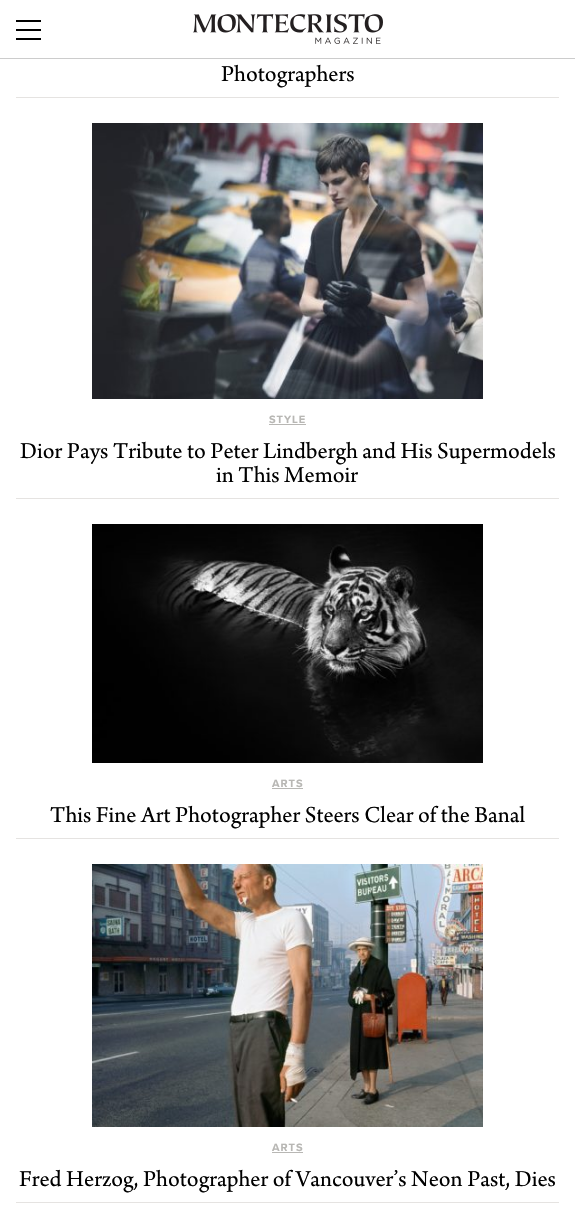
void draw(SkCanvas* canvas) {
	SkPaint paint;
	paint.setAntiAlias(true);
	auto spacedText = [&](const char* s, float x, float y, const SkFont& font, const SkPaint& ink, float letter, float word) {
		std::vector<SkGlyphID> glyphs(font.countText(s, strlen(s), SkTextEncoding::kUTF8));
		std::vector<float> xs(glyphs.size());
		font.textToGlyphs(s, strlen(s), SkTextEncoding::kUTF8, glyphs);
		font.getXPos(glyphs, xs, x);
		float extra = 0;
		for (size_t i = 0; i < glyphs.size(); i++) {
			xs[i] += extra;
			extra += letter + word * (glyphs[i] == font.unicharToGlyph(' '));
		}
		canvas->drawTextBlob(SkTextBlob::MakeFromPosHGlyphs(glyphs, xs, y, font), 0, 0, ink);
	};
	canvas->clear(0xffffffff);
	paint.setColor(0xffcccccc);
	canvas->drawRect(SkRect::MakeXYWH(0, 58, 575, 1), paint);
	paint.setColor(0xff000000);
	canvas->drawRect(SkRect::MakeXYWH(16, 20, 25, 2), paint);
	canvas->drawRect(SkRect::MakeXYWH(16, 29, 25, 2), paint);
	canvas->drawRect(SkRect::MakeXYWH(16, 38, 25, 2), paint);
	canvas->drawImageRect(SkImages::DeferredFromEncodedData(SkData::MakeFromFileName("img1.png")), SkRect::MakeXYWH(193, 14, 190, 30), SkSamplingOptions());
	SkFont f1(fontMgr->matchFamilyStyle("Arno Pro", SkFontStyle::Normal()), 24);
	f1.setSubpixel(true);
	canvas->drawString("Photographers", 221, 81, f1, paint);
	paint.setColor(0xffe5e3e1);
	canvas->drawRect(SkRect::MakeXYWH(16, 97, 543, 1), paint);
	canvas->drawImageRect(SkImages::DeferredFromEncodedData(SkData::MakeFromFileName("img2.png")), SkRect::MakeXYWH(92, 123, 391, 276), SkSamplingOptions());
	SkFont f2(fontMgr->matchFamilyStyle("Proxima Nova", SkFontStyle::Bold()), 11);
	f2.setSubpixel(true);
	paint.setColor(0xffb8b7b4);
	spacedText("STYLE", 269, 423, f2, paint, 1, 0);
	canvas->drawRect(SkRect::MakeXYWH(269, 424, 37, 1), paint);
	paint.setColor(0xff000000);
	canvas->drawString("Dior Pays Tribute to Peter Lindbergh and His Supermodels", 20, 458, f1, paint);
	canvas->drawString("in This Memoir", 216, 482, f1, paint);
	paint.setColor(0xffe5e3e1);
	canvas->drawRect(SkRect::MakeXYWH(16, 498, 543, 1), paint);
	canvas->drawImageRect(SkImages::DeferredFromEncodedData(SkData::MakeFromFileName("img3.png")), SkRect::MakeXYWH(92, 524, 391, 239), SkSamplingOptions());
	paint.setColor(0xffb8b7b4);
	spacedText("ARTS", 272, 787, f2, paint, 1, 0);
	canvas->drawRect(SkRect::MakeXYWH(272, 788, 31, 1), paint);
	paint.setColor(0xff000000);
	canvas->drawString("This Fine Art Photographer Steers Clear of the Banal", 50, 822, f1, paint);
	paint.setColor(0xffe5e3e1);
	canvas->drawRect(SkRect::MakeXYWH(16, 838, 543, 1), paint);
	canvas->drawImageRect(SkImages::DeferredFromEncodedData(SkData::MakeFromFileName("img4.png")), SkRect::MakeXYWH(92, 864, 391, 263), SkSamplingOptions());
	paint.setColor(0xffb8b7b4);
	spacedText("ARTS", 272, 1151, f2, paint, 1, 0);
	canvas->drawRect(SkRect::MakeXYWH(272, 1152, 31, 1), paint);
	paint.setColor(0xff000000);
	canvas->drawString("Fred Herzog, Photographer of Vancouver’s Neon Past, Dies", 19, 1186, f1, paint);
	paint.setColor(0xffe5e3e1);
	canvas->drawRect(SkRect::MakeXYWH(16, 1202, 543, 1), paint);
}
